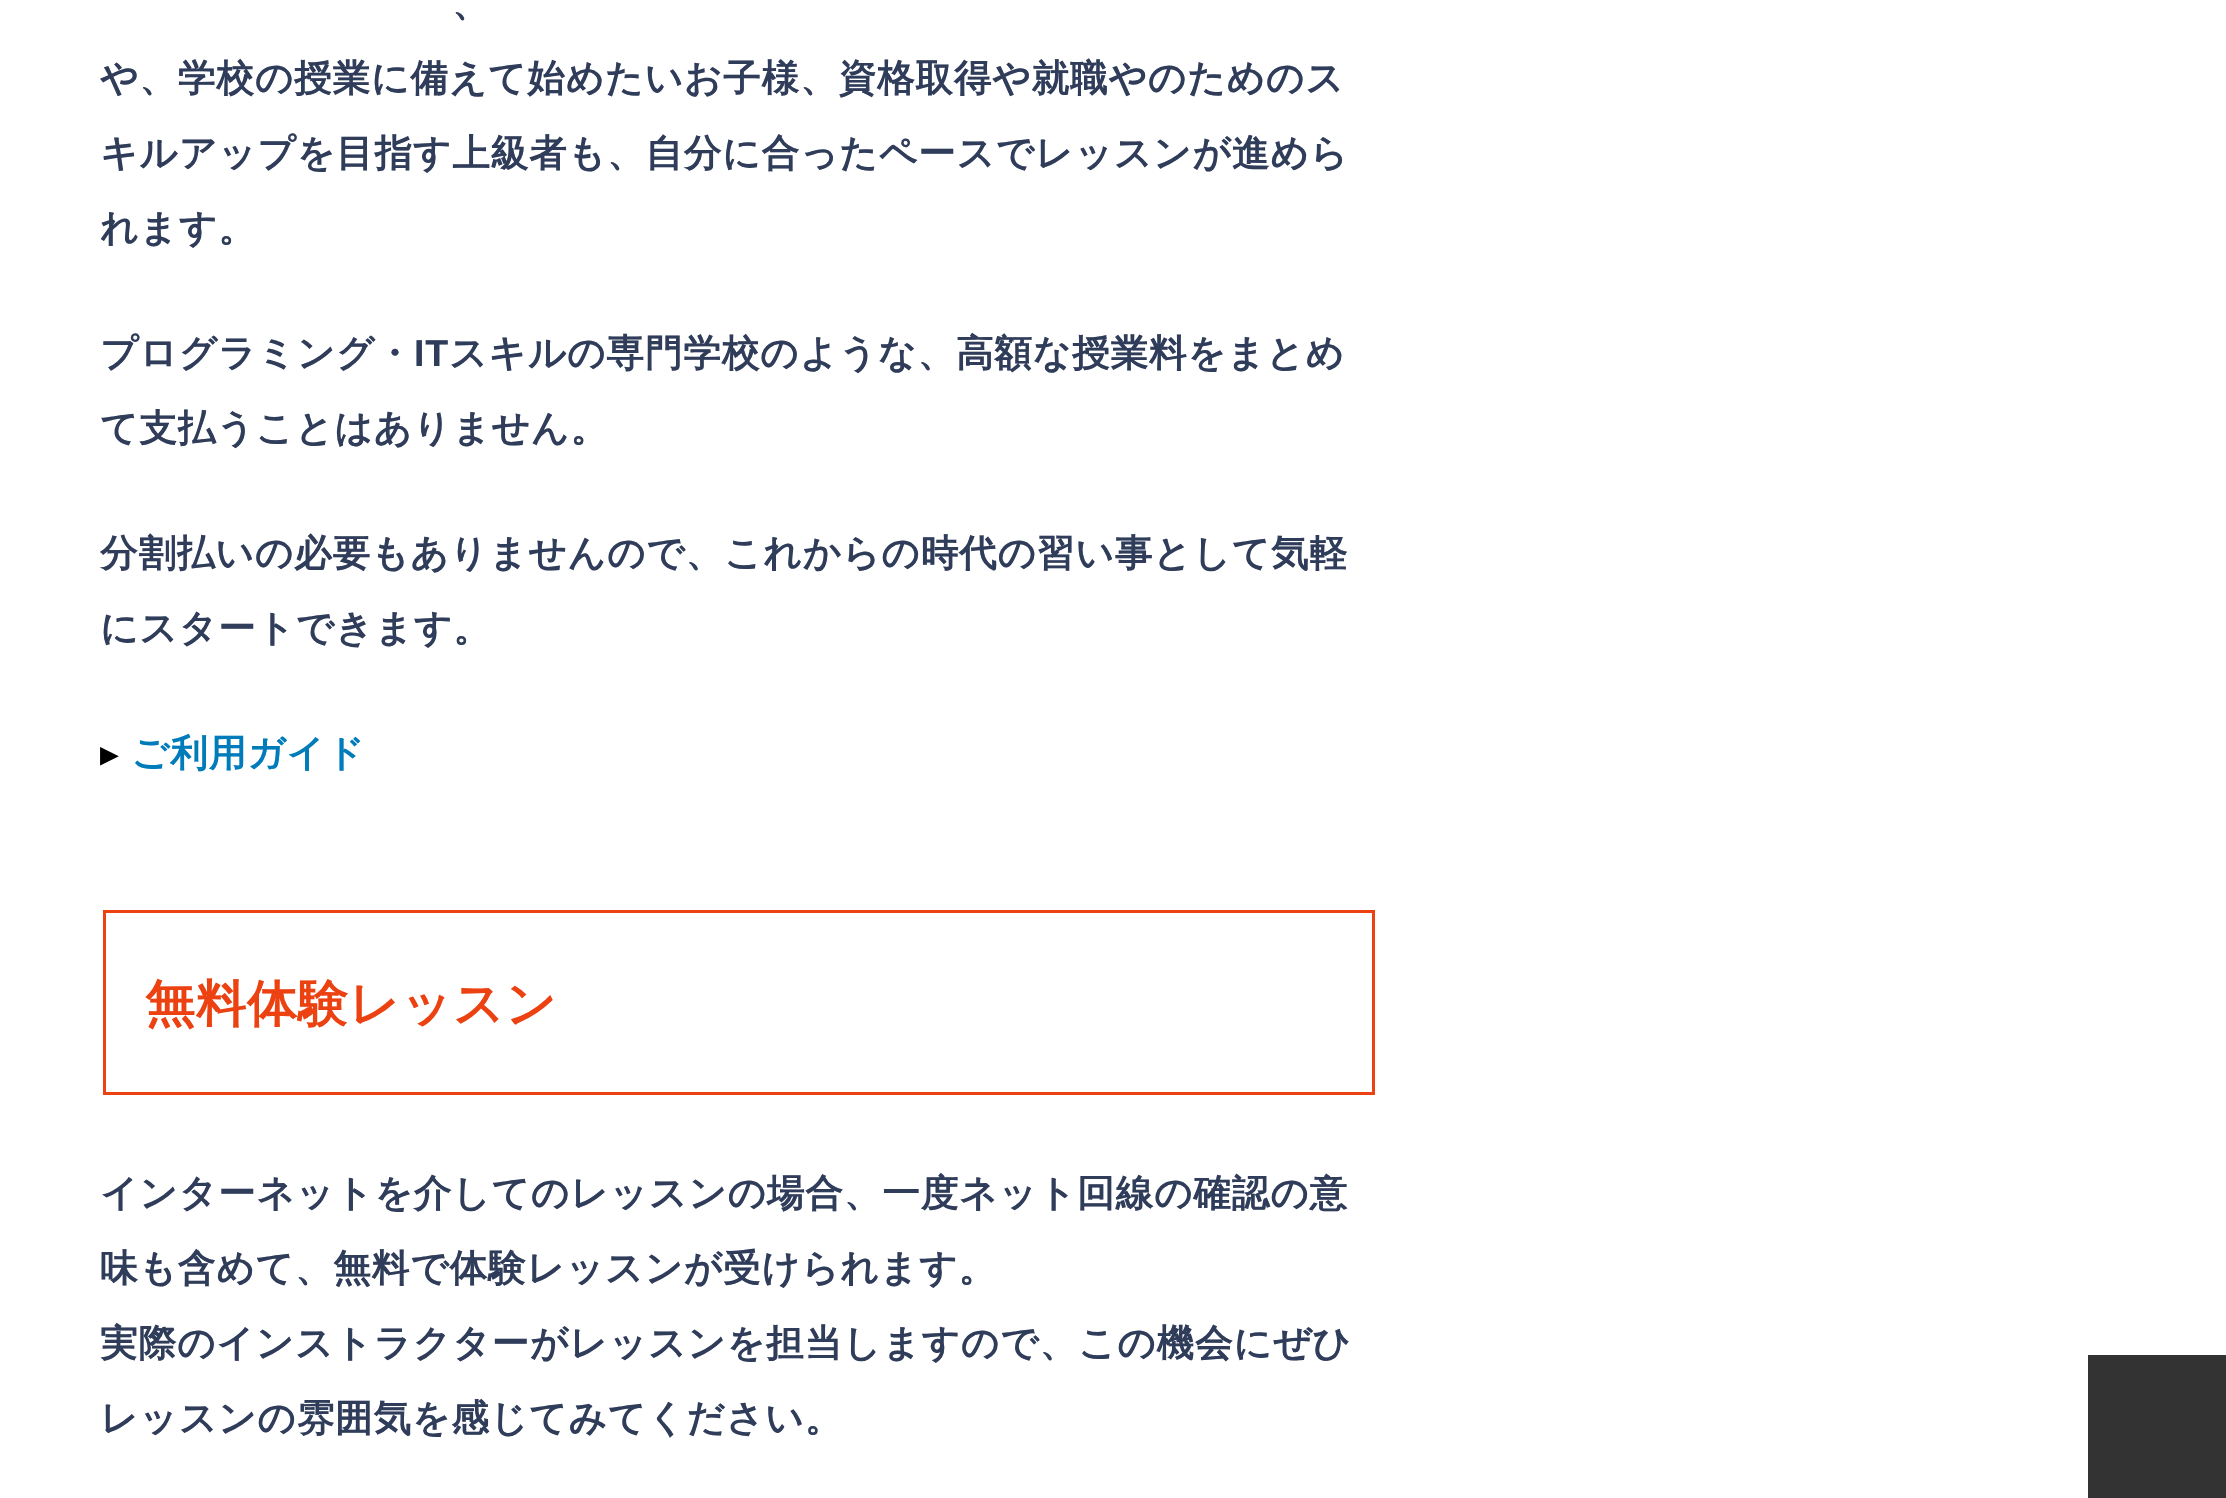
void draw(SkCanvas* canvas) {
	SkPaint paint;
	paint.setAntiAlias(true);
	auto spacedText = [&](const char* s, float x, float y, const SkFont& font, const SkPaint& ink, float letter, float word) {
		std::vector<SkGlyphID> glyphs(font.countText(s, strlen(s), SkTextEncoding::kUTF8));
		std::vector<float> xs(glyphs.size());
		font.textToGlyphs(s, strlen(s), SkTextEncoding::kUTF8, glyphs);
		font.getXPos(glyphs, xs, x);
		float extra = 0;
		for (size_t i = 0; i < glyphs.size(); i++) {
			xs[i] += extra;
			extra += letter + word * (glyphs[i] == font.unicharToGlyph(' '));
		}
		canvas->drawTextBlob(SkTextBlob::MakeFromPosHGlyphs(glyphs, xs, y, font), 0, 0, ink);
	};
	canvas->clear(0xffffffff);
	SkFont f1(fontMgr->matchFamilyStyle("WenQuanYi Zen Hei", SkFontStyle::Bold()), 37.5);
	f1.setSubpixel(true);
	paint.setColor(0xff303d5a);
	spacedText("、", 452, 16, f1, paint, 0.95, 0);
	spacedText("や、学校の授業に備えて始めたいお子様、資格取得や就職やのためのス", 100, 91, f1, paint, 0.95, 0);
	spacedText("キルアップを目指す上級者も、自分に合ったペースでレッスンが進めら", 100, 166, f1, paint, 0.95, 0);
	spacedText("れます。", 100, 241, f1, paint, 0.95, 0);
	spacedText("プログラミング・", 100, 366, f1, paint, 0.95, 0);
	SkFont f2(fontMgr->matchFamilyStyle("Liberation Sans", SkFontStyle::Bold()), 37.5);
	f2.setSubpixel(true);
	spacedText("IT", 414, 366, f2, paint, 0.95, 0);
	spacedText("スキルの専門学校のような、高額な授業料をまとめ", 449, 366, f1, paint, 0.95, 0);
	spacedText("て支払うことはありません。", 100, 441, f1, paint, 0.95, 0);
	spacedText("分割払いの必要もありませんので、これからの時代の習い事として気軽", 100, 566, f1, paint, 0.95, 0);
	spacedText("にスタートできます。", 100, 641, f1, paint, 0.95, 0);
	SkFont f3(fontMgr->matchFamilyStyle("DejaVu Sans", SkFontStyle::Normal()), 37.5);
	f3.setSubpixel(true);
	paint.setColor(0xff000000);
	spacedText("▸", 100, 766, f3, paint, 0.95, 0);
	paint.setColor(0xff007cba);
	spacedText("ご利用ガイド", 131, 766, f1, paint, 0.95, 0);
	paint.setStroke(true);
	paint.setStrokeWidth(3);
	paint.setColor(0xffec4111);
	canvas->drawRect(SkRect::MakeXYWH(104.5, 911.5, 1269, 182), paint);
	SkFont f4(fontMgr->matchFamilyStyle("WenQuanYi Zen Hei", SkFontStyle::Bold()), 50);
	f4.setSubpixel(true);
	paint.setStroke(false);
	spacedText("無料体験レッスン", 145, 1021, f4, paint, 0.95, 0);
	paint.setColor(0xff303d5a);
	spacedText("インターネットを介してのレッスンの場合、一度ネット回線の確認の意", 100, 1206, f1, paint, 0.95, 0);
	spacedText("味も含めて、無料で体験レッスンが受けられます。", 100, 1281, f1, paint, 0.95, 0);
	spacedText("実際のインストラクターがレッスンを担当しますので、この機会にぜひ", 100, 1356, f1, paint, 0.95, 0);
	spacedText("レッスンの雰囲気を感じてみてください。", 100, 1431, f1, paint, 0.95, 0);
	paint.setColor(0xff333333);
	canvas->drawRect(SkRect::MakeXYWH(2088, 1355, 138, 143), paint);
}
